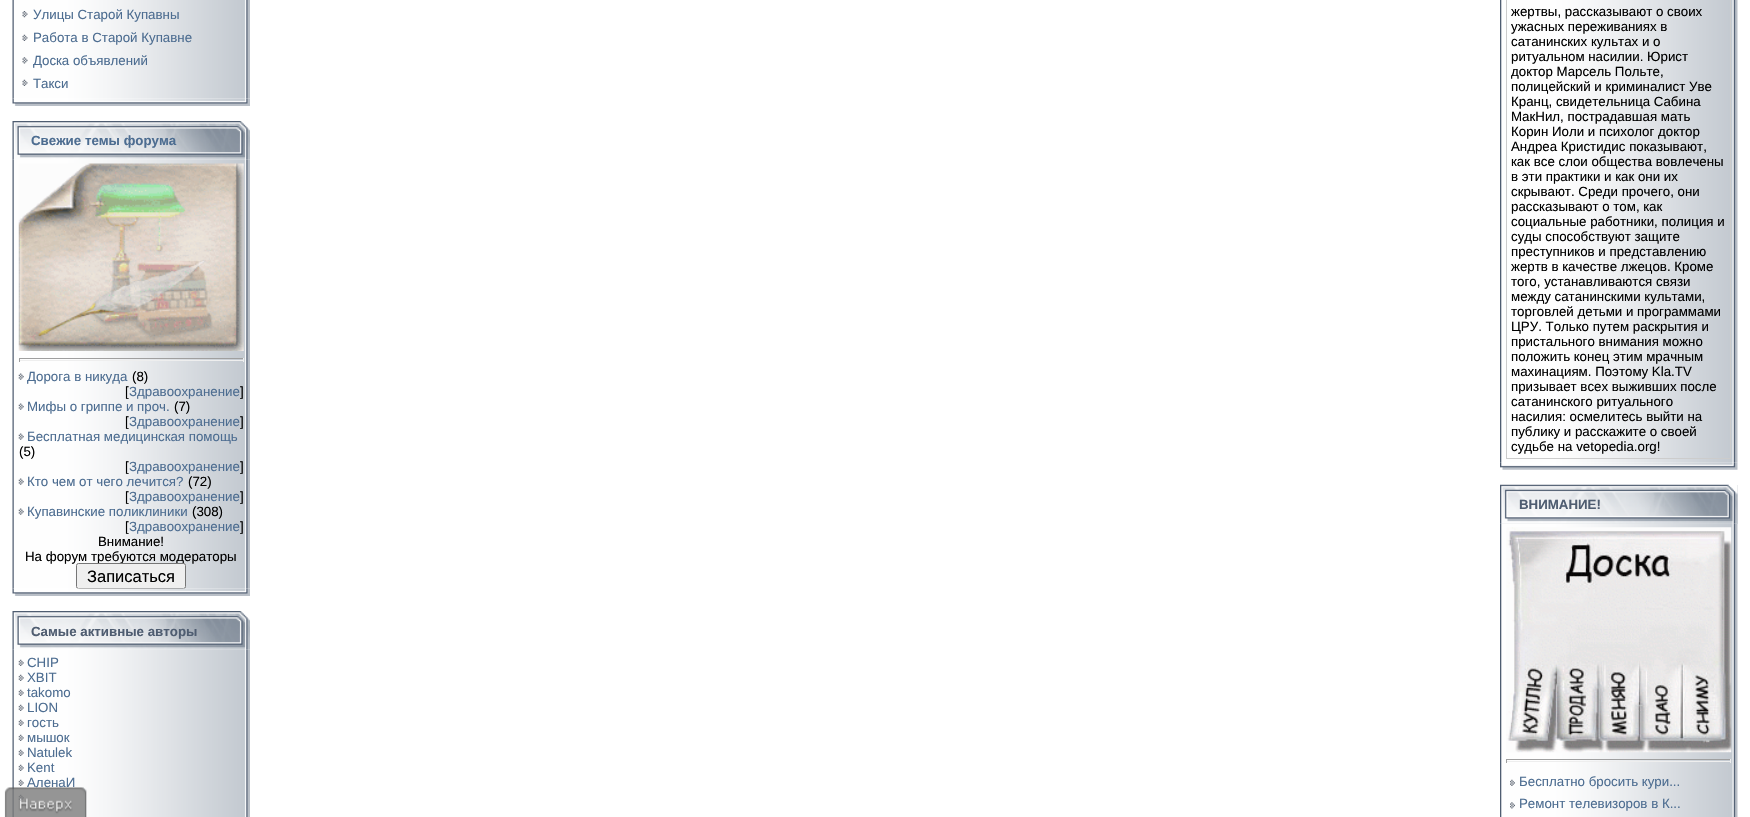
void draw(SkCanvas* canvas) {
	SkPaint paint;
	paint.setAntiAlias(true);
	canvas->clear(0xffffffff);
	canvas->drawImageRect(SkImages::DeferredFromEncodedData(SkData::MakeFromFileName("img1.png")), SkRect::MakeXYWH(12, 0, 238, 99), SkSamplingOptions());
	canvas->drawImageRect(SkImages::DeferredFromEncodedData(SkData::MakeFromFileName("img2.png")), SkRect::MakeXYWH(22, 11, 6, 7), SkSamplingOptions());
	SkFont f1(fontMgr->matchFamilyStyle("Liberation Sans", SkFontStyle::Normal()), 13.3);
	f1.setSubpixel(true);
	paint.setColor(0xff4d6d91);
	canvas->drawString("Улицы Старой Купавны", 33, 19, f1, paint);
	canvas->drawImageRect(SkImages::DeferredFromEncodedData(SkData::MakeFromFileName("img3.png")), SkRect::MakeXYWH(22, 34, 6, 7), SkSamplingOptions());
	canvas->drawString("Работа в Старой Купавне", 33, 42, f1, paint);
	canvas->drawImageRect(SkImages::DeferredFromEncodedData(SkData::MakeFromFileName("img4.png")), SkRect::MakeXYWH(22, 57, 6, 7), SkSamplingOptions());
	canvas->drawString("Доска объявлений", 33, 65, f1, paint);
	canvas->drawImageRect(SkImages::DeferredFromEncodedData(SkData::MakeFromFileName("img3.png")), SkRect::MakeXYWH(22, 79, 6, 7), SkSamplingOptions());
	canvas->drawString("Такси", 33, 88, f1, paint);
	canvas->drawImageRect(SkImages::DeferredFromEncodedData(SkData::MakeFromFileName("img5.png")), SkRect::MakeXYWH(12, 98, 238, 8), SkSamplingOptions());
	canvas->drawImageRect(SkImages::DeferredFromEncodedData(SkData::MakeFromFileName("img6.png")), SkRect::MakeXYWH(12, 121, 238, 39), SkSamplingOptions());
	SkFont f2(fontMgr->matchFamilyStyle("Liberation Sans", SkFontStyle::Bold()), 13.3);
	f2.setSubpixel(true);
	canvas->drawString("Свежие темы форума", 31, 145, f2, paint);
	canvas->drawImageRect(SkImages::DeferredFromEncodedData(SkData::MakeFromFileName("img7.png")), SkRect::MakeXYWH(12, 159, 238, 430), SkSamplingOptions());
	canvas->drawImageRect(SkImages::DeferredFromEncodedData(SkData::MakeFromFileName("img8.png")), SkRect::MakeXYWH(18, 163, 226, 188), SkSamplingOptions());
	paint.setColor(0xff9f9f9f);
	canvas->drawRect(SkRect::MakeXYWH(19, 358, 225, 1), paint);
	paint.setColor(0xffeeeeee);
	canvas->drawRect(SkRect::MakeXYWH(243, 358, 1, 4), paint);
	canvas->drawRect(SkRect::MakeXYWH(19, 360, 225, 1), paint);
	paint.setColor(0xff9f9f9f);
	canvas->drawRect(SkRect::MakeXYWH(19, 358, 1, 4), paint);
	canvas->drawImageRect(SkImages::DeferredFromEncodedData(SkData::MakeFromFileName("img9.png")), SkRect::MakeXYWH(18, 373, 6, 7), SkSamplingOptions());
	paint.setColor(0xff4d6d91);
	canvas->drawString("Дорога в никуда", 27, 381, f1, paint);
	paint.setColor(0xff000000);
	canvas->drawString("(8)", 132, 381, f1, paint);
	canvas->drawString("[", 125, 396, f1, paint);
	paint.setColor(0xff4d6d91);
	canvas->drawString("Здравоохранение", 129, 396, f1, paint);
	paint.setColor(0xff000000);
	canvas->drawString("]", 240, 396, f1, paint);
	canvas->drawImageRect(SkImages::DeferredFromEncodedData(SkData::MakeFromFileName("img9.png")), SkRect::MakeXYWH(18, 403, 6, 7), SkSamplingOptions());
	paint.setColor(0xff4d6d91);
	canvas->drawString("Мифы о гриппе и проч.", 27, 411, f1, paint);
	paint.setColor(0xff000000);
	canvas->drawString("(7)", 174, 411, f1, paint);
	canvas->drawString("[", 125, 426, f1, paint);
	paint.setColor(0xff4d6d91);
	canvas->drawString("Здравоохранение", 129, 426, f1, paint);
	paint.setColor(0xff000000);
	canvas->drawString("]", 240, 426, f1, paint);
	canvas->drawImageRect(SkImages::DeferredFromEncodedData(SkData::MakeFromFileName("img9.png")), SkRect::MakeXYWH(18, 433, 6, 7), SkSamplingOptions());
	paint.setColor(0xff4d6d91);
	canvas->drawString("Бесплатная медицинская помощь", 27, 441, f1, paint);
	paint.setColor(0xff000000);
	canvas->drawString("(5)", 19, 456, f1, paint);
	canvas->drawString("[", 125, 471, f1, paint);
	paint.setColor(0xff4d6d91);
	canvas->drawString("Здравоохранение", 129, 471, f1, paint);
	paint.setColor(0xff000000);
	canvas->drawString("]", 240, 471, f1, paint);
	canvas->drawImageRect(SkImages::DeferredFromEncodedData(SkData::MakeFromFileName("img9.png")), SkRect::MakeXYWH(18, 478, 6, 7), SkSamplingOptions());
	paint.setColor(0xff4d6d91);
	canvas->drawString("Кто чем от чего лечится?", 27, 486, f1, paint);
	paint.setColor(0xff000000);
	canvas->drawString("(72)", 188, 486, f1, paint);
	canvas->drawString("[", 125, 501, f1, paint);
	paint.setColor(0xff4d6d91);
	canvas->drawString("Здравоохранение", 129, 501, f1, paint);
	paint.setColor(0xff000000);
	canvas->drawString("]", 240, 501, f1, paint);
	canvas->drawImageRect(SkImages::DeferredFromEncodedData(SkData::MakeFromFileName("img9.png")), SkRect::MakeXYWH(18, 508, 6, 7), SkSamplingOptions());
	paint.setColor(0xff4d6d91);
	canvas->drawString("Купавинские поликлиники", 27, 516, f1, paint);
	paint.setColor(0xff000000);
	canvas->drawString("(308)", 192, 516, f1, paint);
	canvas->drawString("[", 125, 531, f1, paint);
	paint.setColor(0xff4d6d91);
	canvas->drawString("Здравоохранение", 129, 531, f1, paint);
	paint.setColor(0xff000000);
	canvas->drawString("]", 240, 531, f1, paint);
	canvas->drawString("Внимание!", 98, 546, f1, paint);
	canvas->drawString("На форум требуются модераторы", 25, 561, f1, paint);
	paint.setColor(0xffefefef);
	canvas->drawRoundRect(SkRect::MakeXYWH(76.5, 563.5, 109, 25), 2, 2, paint);
	paint.setStroke(true);
	paint.setStrokeWidth(1);
	paint.setColor(0xff767676);
	canvas->drawRoundRect(SkRect::MakeXYWH(76.5, 563.5, 109, 25), 2, 2, paint);
	SkFont f3(fontMgr->matchFamilyStyle("Liberation Sans", SkFontStyle::Normal()), 16.5);
	f3.setSubpixel(true);
	paint.setStroke(false);
	paint.setColor(0xff000000);
	canvas->drawString("Записаться", 87, 582, f3, paint);
	canvas->drawImageRect(SkImages::DeferredFromEncodedData(SkData::MakeFromFileName("img10.png")), SkRect::MakeXYWH(12, 588, 238, 8), SkSamplingOptions());
	canvas->drawImageRect(SkImages::DeferredFromEncodedData(SkData::MakeFromFileName("img11.png")), SkRect::MakeXYWH(12, 611, 238, 39), SkSamplingOptions());
	paint.setColor(0xff4f5d71);
	canvas->drawString("Самые активные авторы", 31, 636, f2, paint);
	canvas->drawImageRect(SkImages::DeferredFromEncodedData(SkData::MakeFromFileName("img12.png")), SkRect::MakeXYWH(12, 649, 238, 168), SkSamplingOptions());
	canvas->drawImageRect(SkImages::DeferredFromEncodedData(SkData::MakeFromFileName("img13.png")), SkRect::MakeXYWH(18, 659, 6, 7), SkSamplingOptions());
	paint.setColor(0xff4d6d91);
	canvas->drawString("CHIP", 27, 667, f1, paint);
	canvas->drawImageRect(SkImages::DeferredFromEncodedData(SkData::MakeFromFileName("img13.png")), SkRect::MakeXYWH(18, 674, 6, 7), SkSamplingOptions());
	canvas->drawString("XBIT", 27, 682, f1, paint);
	canvas->drawImageRect(SkImages::DeferredFromEncodedData(SkData::MakeFromFileName("img13.png")), SkRect::MakeXYWH(18, 689, 6, 7), SkSamplingOptions());
	canvas->drawString("takomo", 27, 697, f1, paint);
	canvas->drawImageRect(SkImages::DeferredFromEncodedData(SkData::MakeFromFileName("img13.png")), SkRect::MakeXYWH(18, 704, 6, 7), SkSamplingOptions());
	canvas->drawString("LION", 27, 712, f1, paint);
	canvas->drawImageRect(SkImages::DeferredFromEncodedData(SkData::MakeFromFileName("img13.png")), SkRect::MakeXYWH(18, 719, 6, 7), SkSamplingOptions());
	canvas->drawString("гость", 27, 727, f1, paint);
	canvas->drawImageRect(SkImages::DeferredFromEncodedData(SkData::MakeFromFileName("img13.png")), SkRect::MakeXYWH(18, 734, 6, 7), SkSamplingOptions());
	canvas->drawString("мышок", 27, 742, f1, paint);
	canvas->drawImageRect(SkImages::DeferredFromEncodedData(SkData::MakeFromFileName("img13.png")), SkRect::MakeXYWH(18, 749, 6, 7), SkSamplingOptions());
	canvas->drawString("Natulek", 27, 757, f1, paint);
	canvas->drawImageRect(SkImages::DeferredFromEncodedData(SkData::MakeFromFileName("img13.png")), SkRect::MakeXYWH(18, 764, 6, 7), SkSamplingOptions());
	canvas->drawString("Kent", 27, 772, f1, paint);
	canvas->drawImageRect(SkImages::DeferredFromEncodedData(SkData::MakeFromFileName("img13.png")), SkRect::MakeXYWH(18, 779, 6, 7), SkSamplingOptions());
	canvas->drawString("АленаИ", 27, 787, f1, paint);
	canvas->drawImageRect(SkImages::DeferredFromEncodedData(SkData::MakeFromFileName("img13.png")), SkRect::MakeXYWH(18, 794, 6, 7), SkSamplingOptions());
	canvas->drawImageRect(SkImages::DeferredFromEncodedData(SkData::MakeFromFileName("img14.png")), SkRect::MakeXYWH(1500, 0, 238, 463), SkSamplingOptions());
	paint.setStroke(true);
	paint.setColor(0xffcccccc);
	canvas->drawRect(SkRect::MakeXYWH(1506.5, -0.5, 224, 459), paint);
	paint.setStroke(false);
	paint.setColor(0xff000000);
	canvas->drawString("жертвы, рассказывают о своих", 1511, 16, f1, paint);
	canvas->drawString("ужасных переживаниях в", 1511, 31, f1, paint);
	canvas->drawString("сатанинских культах и о", 1511, 46, f1, paint);
	canvas->drawString("ритуальном насилии. Юрист", 1511, 61, f1, paint);
	canvas->drawString("доктор Марсель Польте,", 1511, 76, f1, paint);
	canvas->drawString("полицейский и криминалист Уве", 1511, 91, f1, paint);
	canvas->drawString("Кранц, свидетельница Сабина", 1511, 106, f1, paint);
	canvas->drawString("МакНил, пострадавшая мать", 1511, 121, f1, paint);
	canvas->drawString("Корин Иоли и психолог доктор", 1511, 136, f1, paint);
	canvas->drawString("Андреа Кристидис показывают,", 1511, 151, f1, paint);
	canvas->drawString("как все слои общества вовлечены", 1511, 166, f1, paint);
	canvas->drawString("в эти практики и как они их", 1511, 181, f1, paint);
	canvas->drawString("скрывают. Среди прочего, они", 1511, 196, f1, paint);
	canvas->drawString("рассказывают о том, как", 1511, 211, f1, paint);
	canvas->drawString("социальные работники, полиция и", 1511, 226, f1, paint);
	canvas->drawString("суды способствуют защите", 1511, 241, f1, paint);
	canvas->drawString("преступников и представлению", 1511, 256, f1, paint);
	canvas->drawString("жертв в качестве лжецов. Кроме", 1511, 271, f1, paint);
	canvas->drawString("того, устанавливаются связи", 1511, 286, f1, paint);
	canvas->drawString("между сатанинскими культами,", 1511, 301, f1, paint);
	canvas->drawString("торговлей детьми и программами", 1511, 316, f1, paint);
	canvas->drawString("ЦРУ. Только путем раскрытия и", 1511, 331, f1, paint);
	canvas->drawString("пристального внимания можно", 1511, 346, f1, paint);
	canvas->drawString("положить конец этим мрачным", 1511, 361, f1, paint);
	canvas->drawString("махинациям. Поэтому Kla.TV", 1511, 376, f1, paint);
	canvas->drawString("призывает всех выживших после", 1511, 391, f1, paint);
	canvas->drawString("сатанинского ритуального", 1511, 406, f1, paint);
	canvas->drawString("насилия: осмелитесь выйти на", 1511, 421, f1, paint);
	canvas->drawString("публику и расскажите о своей", 1511, 436, f1, paint);
	canvas->drawString("судьбе на vetopedia.org!", 1511, 451, f1, paint);
	canvas->drawImageRect(SkImages::DeferredFromEncodedData(SkData::MakeFromFileName("img15.png")), SkRect::MakeXYWH(1500, 462, 238, 8), SkSamplingOptions());
	paint.setColor(0xffd8dce1);
	canvas->drawRect(SkRect::MakeXYWH(1500, 485, 238, 39), paint);
	canvas->drawImageRect(SkImages::DeferredFromEncodedData(SkData::MakeFromFileName("img16.png")), SkRect::MakeXYWH(1500, 484, 238, 40), SkSamplingOptions());
	paint.setColor(0xff4f5d71);
	canvas->drawString("ВНИМАНИЕ!", 1519, 509, f2, paint);
	canvas->drawImageRect(SkImages::DeferredFromEncodedData(SkData::MakeFromFileName("img17.png")), SkRect::MakeXYWH(1500, 523, 238, 294), SkSamplingOptions());
	canvas->drawImageRect(SkImages::DeferredFromEncodedData(SkData::MakeFromFileName("img18.png")), SkRect::MakeXYWH(1506, 527, 226, 226), SkSamplingOptions());
	paint.setColor(0xff9f9f9f);
	canvas->drawRect(SkRect::MakeXYWH(1506, 759, 225, 1), paint);
	paint.setColor(0xffeeeeee);
	canvas->drawRect(SkRect::MakeXYWH(1730, 759, 1, 4), paint);
	canvas->drawRect(SkRect::MakeXYWH(1506, 761, 225, 1), paint);
	paint.setColor(0xff9f9f9f);
	canvas->drawRect(SkRect::MakeXYWH(1506, 759, 1, 4), paint);
	canvas->drawImageRect(SkImages::DeferredFromEncodedData(SkData::MakeFromFileName("img19.png")), SkRect::MakeXYWH(1510, 779, 5, 7), SkSamplingOptions());
	paint.setColor(0xff4d6d91);
	canvas->drawString("Бесплатно бросить кури...", 1519, 786, f1, paint);
	canvas->drawImageRect(SkImages::DeferredFromEncodedData(SkData::MakeFromFileName("img20.png")), SkRect::MakeXYWH(1510, 802, 5, 7), SkSamplingOptions());
	canvas->drawString("Ремонт телевизоров в К...", 1519, 808, f1, paint);
	canvas->drawImageRect(SkImages::DeferredFromEncodedData(SkData::MakeFromFileName("img21.png")), SkRect::MakeXYWH(4, 787, 83, 30), SkSamplingOptions());
}
